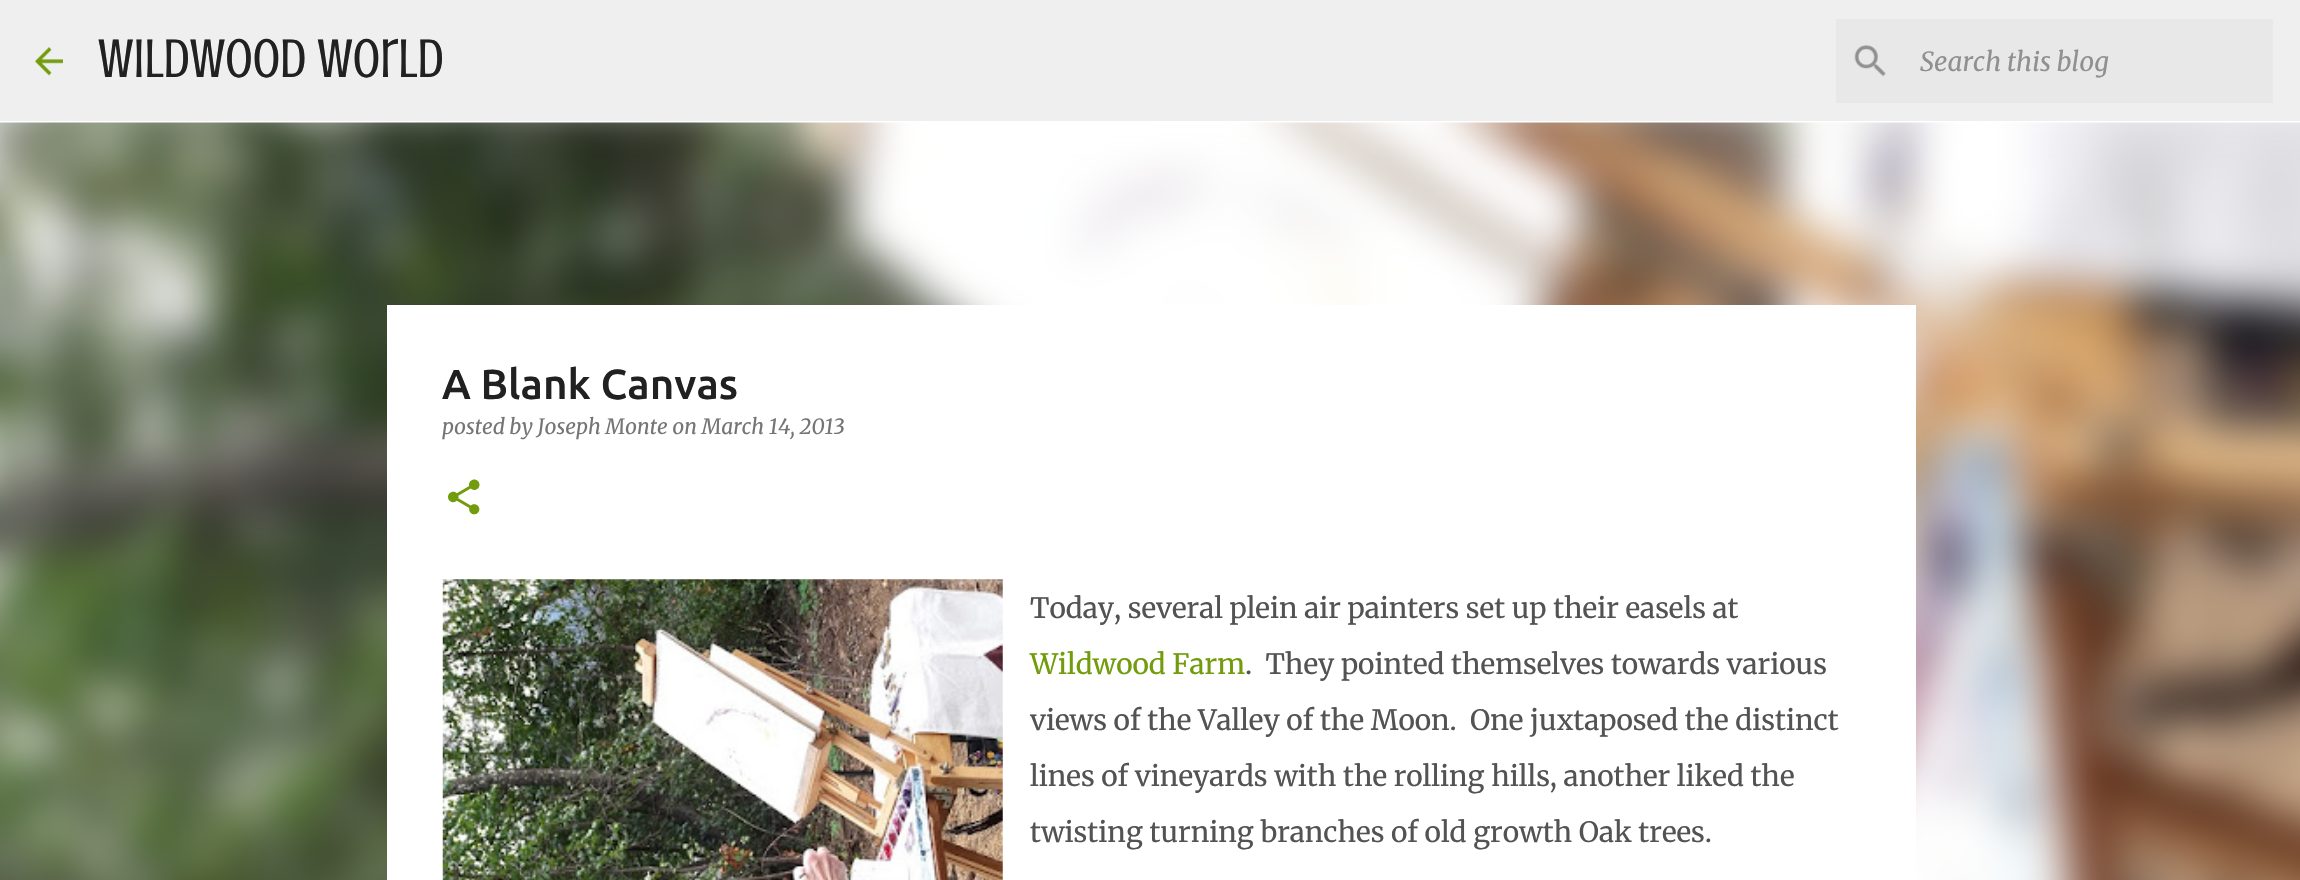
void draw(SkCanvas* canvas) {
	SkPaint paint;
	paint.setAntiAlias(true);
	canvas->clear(0xffffffff);
	paint.setColor(0xffefefef);
	canvas->drawRect(SkRect::MakeXYWH(0, 0, 2300, 121), paint);
	canvas->drawImageRect(SkImages::DeferredFromEncodedData(SkData::MakeFromFileName("img1.png")), SkRect::MakeXYWH(35, 47, 28, 29), SkSamplingOptions());
	SkFont f1(fontMgr->matchFamilyStyle("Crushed", SkFontStyle::Normal()), 56);
	f1.setSubpixel(true);
	paint.setColor(0xff212121);
	canvas->drawString("Wildwood World", 98, 77, f1, paint);
	paint.setColor(0xffe8e8e8);
	canvas->drawRect(SkRect::MakeXYWH(1836, 19, 437, 84), paint);
	canvas->drawImageRect(SkImages::DeferredFromEncodedData(SkData::MakeFromFileName("img2.png")), SkRect::MakeXYWH(1854, 45, 32, 32), SkSamplingOptions());
	SkFont f2(fontMgr->matchFamilyStyle("Merriweather", SkFontStyle::Italic()), 26.25);
	f2.setSubpixel(true);
	paint.setColor(0xff909090);
	canvas->drawString("Search this blog", 1920, 71, f2, paint);
	canvas->drawImageRect(SkImages::DeferredFromEncodedData(SkData::MakeFromFileName("img5.png")), SkRect::MakeXYWH(0, 122, 2300, 758), SkSamplingOptions());
	paint.setColor(0xffffffff);
	canvas->drawRect(SkRect::MakeXYWH(387, 305, 1529, 575), paint);
	SkFont f3(fontMgr->matchFamilyStyle("Ubuntu", SkFontStyle(500, SkFontStyle::kNormal_Width, SkFontStyle::kUpright_Slant)), 42);
	f3.setSubpixel(true);
	paint.setColor(0xff212121);
	canvas->drawString("A Blank Canvas", 442, 399, f3, paint);
	SkFont f4(fontMgr->matchFamilyStyle("Merriweather", SkFontStyle::Italic()), 21);
	f4.setSubpixel(true);
	paint.setColor(0xff757575);
	canvas->drawString("posted by Joseph Monte on March 14, 2013", 442, 434, f4, paint);
	canvas->drawImageRect(SkImages::DeferredFromEncodedData(SkData::MakeFromFileName("img3.png")), SkRect::MakeXYWH(448, 479, 32, 36), SkSamplingOptions());
	canvas->drawImageRect(SkImages::DeferredFromEncodedData(SkData::MakeFromFileName("img4.png")), SkRect::MakeXYWH(442, 579, 561, 301), SkSamplingOptions());
	SkFont f5(fontMgr->matchFamilyStyle("Merriweather", SkFontStyle(300, SkFontStyle::kNormal_Width, SkFontStyle::kUpright_Slant)), 28);
	f5.setSubpixel(true);
	paint.setColor(0xff535353);
	canvas->drawString("Today, several plein air painters set up their easels at", 1030, 618, f5, paint);
	paint.setColor(0xff729c0b);
	canvas->drawString("Wildwood Farm", 1030, 674, f5, paint);
	paint.setColor(0xff535353);
	canvas->drawString(".  They pointed themselves towards various", 1245, 674, f5, paint);
	canvas->drawString("views of the Valley of the Moon.  One juxtaposed the distinct", 1030, 730, f5, paint);
	canvas->drawString("lines of vineyards with the rolling hills, another liked the", 1030, 786, f5, paint);
	canvas->drawString("twisting turning branches of old growth Oak trees.", 1030, 842, f5, paint);
}
